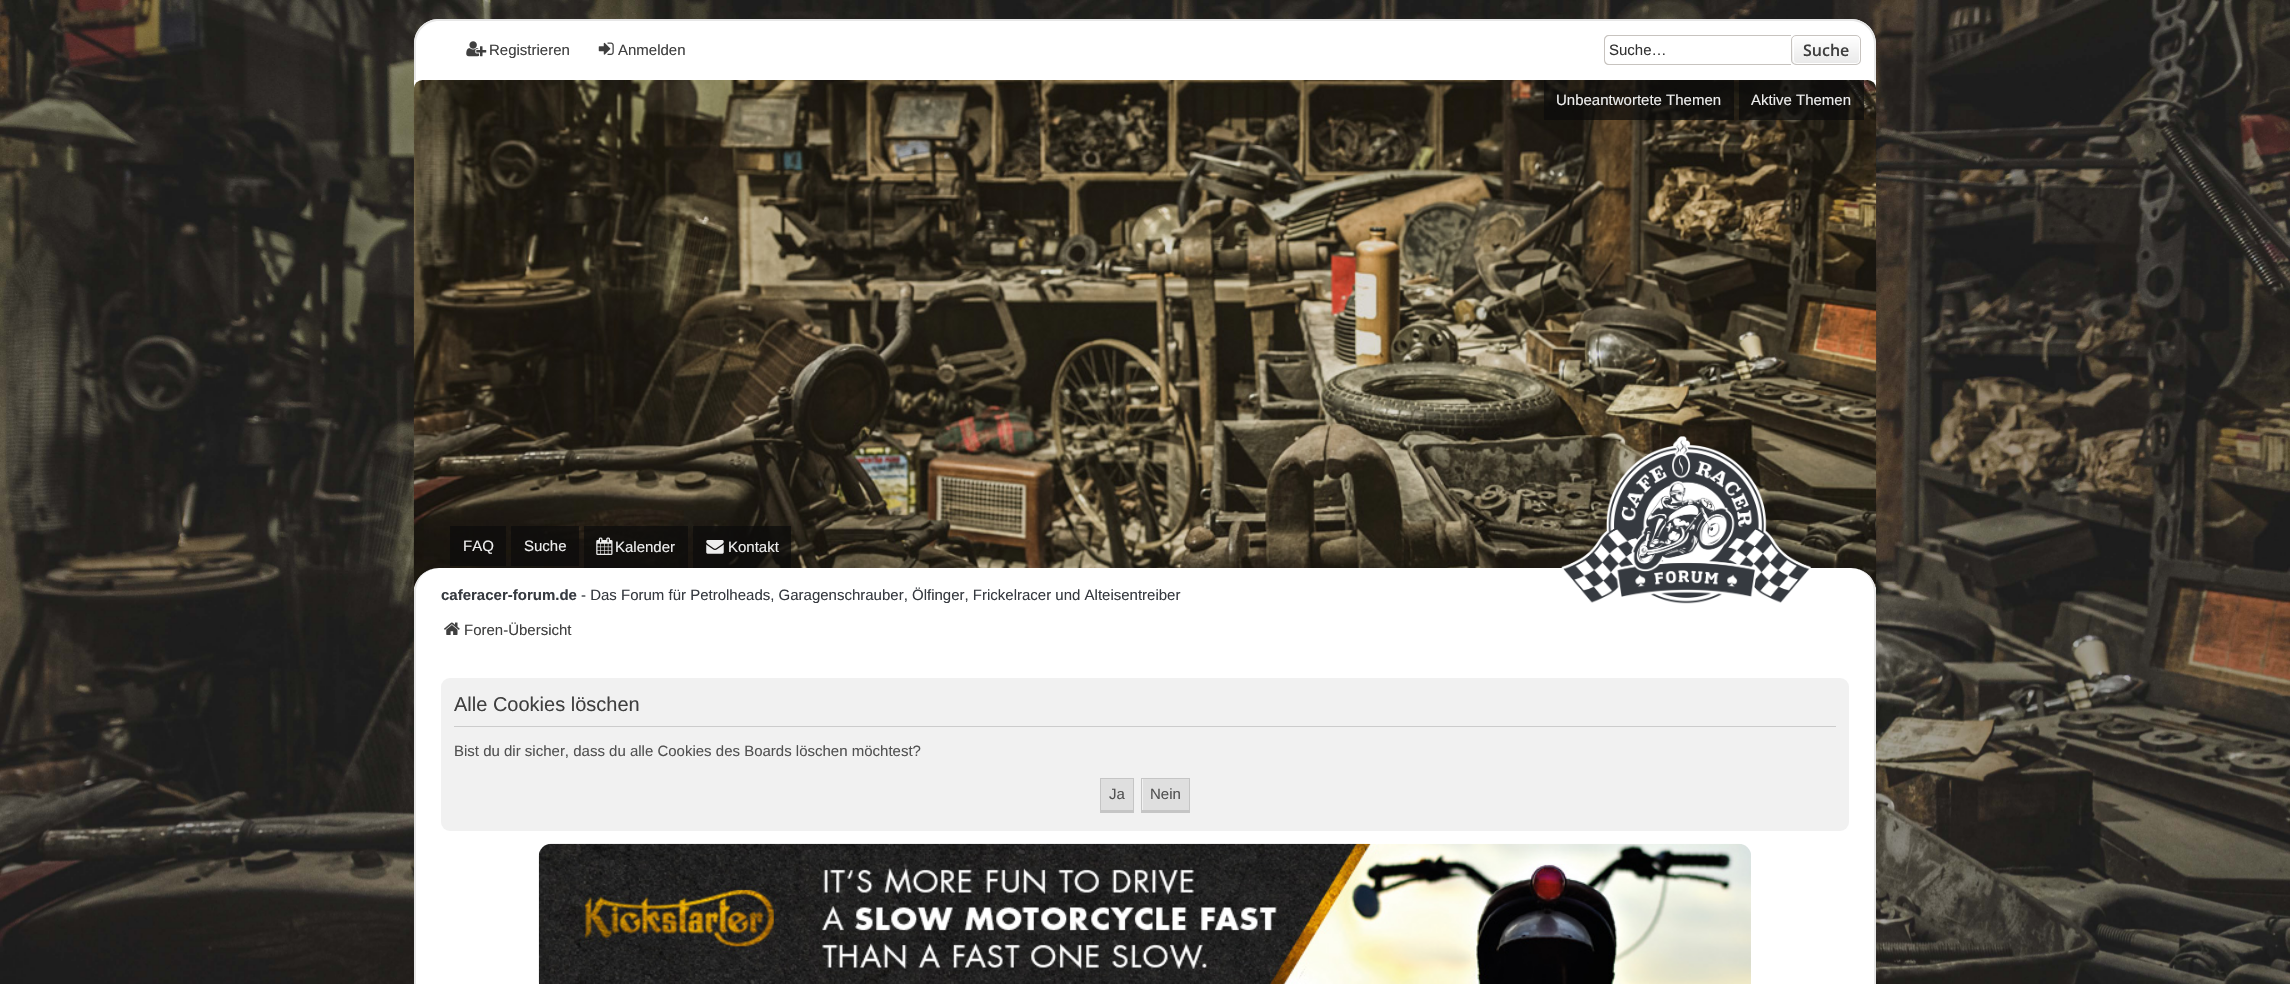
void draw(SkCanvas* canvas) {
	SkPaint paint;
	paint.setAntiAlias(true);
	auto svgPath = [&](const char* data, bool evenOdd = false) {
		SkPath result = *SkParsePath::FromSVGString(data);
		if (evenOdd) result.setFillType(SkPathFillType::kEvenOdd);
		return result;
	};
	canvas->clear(0xffffffff);
	canvas->drawImageRect(SkImages::DeferredFromEncodedData(SkData::MakeFromFileName("img1.png")), SkRect::MakeXYWH(0, 0, 2290, 984), SkSamplingOptions());
	paint.setColor(0xffffffff);
	canvas->drawPath(svgPath("M439 19H1851C1865 19 1876 30 1876 44V80H414V44C414 30 425 19 439 19Z"), paint);
	paint.setColor(0xffe7e7e7);
	canvas->drawPath(svgPath("M439 19H1851C1865 19 1876 30 1876 44V80H414V44C414 30 425 19 439 19ZM439 21H1851C1864 21 1874 31 1874 44V80H416V44C416 31 426 21 439 21Z", true), paint);
	canvas->drawImageRect(SkImages::DeferredFromEncodedData(SkData::MakeFromFileName("img2.png")), SkRect::MakeXYWH(466, 41, 21, 16), SkSamplingOptions());
	SkFont f1(fontMgr->matchFamilyStyle("Liberation Sans", SkFontStyle::Normal()), 15);
	f1.setSubpixel(true);
	paint.setColor(0xff3f3f3f);
	canvas->drawString("Registrieren", 489, 55, f1, paint);
	canvas->drawImageRect(SkImages::DeferredFromEncodedData(SkData::MakeFromFileName("img3.png")), SkRect::MakeXYWH(598, 42, 16, 13), SkSamplingOptions());
	canvas->drawString("Anmelden", 618, 55, f1, paint);
	paint.setColor(0xffc7c3bf);
	canvas->drawPath(svgPath("M1609 35H1791V65H1609C1606 65 1604 63 1604 60V40C1604 37 1606 35 1609 35ZM1609 36H1791V64H1609C1607 64 1605 62 1605 60V40C1605 38 1607 36 1609 36Z", true), paint);
	paint.setColor(0xff333333);
	canvas->drawString("Suche…", 1609, 55, f1, paint);
	canvas->save();
	canvas->clipPath(svgPath("M1796 35H1856C1859 35 1861 37 1861 40V60C1861 63 1859 65 1856 65H1796C1793 65 1791 63 1791 60V40C1791 37 1793 35 1796 35Z"), true);
	{
		const SkColor colors[] = {0xffffffff, 0xffe9e9e9};
		const float stops[] = {0, 1};
		const SkPoint ends[] = {{1826, 36}, {1826, 64}};
		paint.setShader(SkGradientShader::MakeLinear(ends, colors, stops, 2, SkTileMode::kClamp));
		paint.setAlpha(255);
	}
	canvas->drawRect(SkRect::MakeXYWH(1791, 36, 70, 28), paint);
	canvas->restore();
	paint.setStroke(true);
	paint.setStrokeWidth(1);
	paint.setShader(nullptr);
	paint.setColor(0xffffffff);
	canvas->drawRoundRect(SkRect::MakeXYWH(1793.5, 36.5, 66, 27), 3.5, 3.5, paint);
	paint.setColor(0xffc7c3bf);
	canvas->drawRoundRect(SkRect::MakeXYWH(1791.5, 35.5, 69, 29), 4.5, 4.5, paint);
	SkFont f2(fontMgr->matchFamilyStyle("Open Sans", SkFontStyle(600, SkFontStyle::kNormal_Width, SkFontStyle::kUpright_Slant)), 16);
	f2.setSubpixel(true);
	paint.setStroke(false);
	paint.setColor(0xff3f3f3f);
	canvas->drawString("Suche", 1803, 56, f2, paint);
	paint.setColor(0xffffffff);
	canvas->drawRect(SkRect::MakeXYWH(414, 80, 1462, 512), paint);
	canvas->drawImageRect(SkImages::DeferredFromEncodedData(SkData::MakeFromFileName("img4.png")), SkRect::MakeXYWH(413, 80, 1464, 508), SkSamplingOptions());
	paint.setColor(0xb30a0a0a);
	canvas->drawRect(SkRect::MakeXYWH(1544, 80, 190, 40), paint);
	paint.setColor(0xffeeeeee);
	canvas->drawString("Unbeantwortete Themen", 1556, 105, f1, paint);
	paint.setColor(0xb30a0a0a);
	canvas->drawRect(SkRect::MakeXYWH(1739, 80, 125, 40), paint);
	paint.setColor(0xffeeeeee);
	canvas->drawString("Aktive Themen", 1751, 105, f1, paint);
	paint.setColor(0xb30a0a0a);
	canvas->drawRect(SkRect::MakeXYWH(450, 526, 56, 40), paint);
	paint.setColor(0xffeeeeee);
	canvas->drawString("FAQ", 463, 551, f1, paint);
	paint.setColor(0xb30a0a0a);
	canvas->drawRect(SkRect::MakeXYWH(511, 526, 68, 40), paint);
	paint.setColor(0xffeeeeee);
	canvas->drawString("Suche", 524, 551, f1, paint);
	paint.setColor(0xb30a0a0a);
	canvas->drawRect(SkRect::MakeXYWH(584, 526, 104, 42), paint);
	canvas->drawImageRect(SkImages::DeferredFromEncodedData(SkData::MakeFromFileName("img5.png")), SkRect::MakeXYWH(596, 537, 17, 18), SkSamplingOptions());
	paint.setColor(0xffeeeeee);
	canvas->drawString("Kalender", 615, 552, f1, paint);
	paint.setColor(0xb30a0a0a);
	canvas->drawRect(SkRect::MakeXYWH(693, 526, 98, 42), paint);
	canvas->drawImageRect(SkImages::DeferredFromEncodedData(SkData::MakeFromFileName("img6.png")), SkRect::MakeXYWH(706, 540, 18, 14), SkSamplingOptions());
	paint.setColor(0xffeeeeee);
	canvas->drawString("Kontakt", 728, 552, f1, paint);
	paint.setColor(0xffffffff);
	canvas->drawRoundRect(SkRect::MakeXYWH(414, 568, 1462, 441), 25, 25, paint);
	paint.setColor(0xffe7e7e7);
	canvas->drawPath(svgPath("M439 568H1851C1865 568 1876 579 1876 592V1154C1876 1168 1865 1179 1851 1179H439C425 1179 414 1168 414 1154V592C414 579 425 568 439 568ZM439 568H1851C1864 568 1874 579 1874 592V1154C1874 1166 1864 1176 1851 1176H439C426 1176 416 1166 416 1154V592C416 579 426 568 439 568Z", true), paint);
	SkFont f3(fontMgr->matchFamilyStyle("Liberation Sans", SkFontStyle::Bold()), 15);
	f3.setSubpixel(true);
	paint.setColor(0xff363a40);
	canvas->drawString("caferacer-forum.de", 441, 600, f3, paint);
	canvas->drawString("- Das Forum für Petrolheads, Garagenschrauber, Ölfinger, Frickelracer und Alteisentreiber", 581, 600, f1, paint);
	canvas->drawImageRect(SkImages::DeferredFromEncodedData(SkData::MakeFromFileName("img7.png")), SkRect::MakeXYWH(1561, 436, 251, 168), SkSamplingOptions());
	canvas->drawImageRect(SkImages::DeferredFromEncodedData(SkData::MakeFromFileName("img8.png")), SkRect::MakeXYWH(444, 622, 16, 13), SkSamplingOptions());
	paint.setColor(0xff3f3f3f);
	canvas->drawString("Foren-Übersicht", 464, 635, f1, paint);
	paint.setColor(0xfff1f1f1);
	canvas->drawRoundRect(SkRect::MakeXYWH(441, 678, 1408, 153), 9, 9, paint);
	paint.setColor(0xffcccccc);
	canvas->drawRect(SkRect::MakeXYWH(454, 726, 1382, 1), paint);
	SkFont f4(fontMgr->matchFamilyStyle("Liberation Sans", SkFontStyle::Normal()), 20);
	f4.setSubpixel(true);
	paint.setColor(0xff3f3f3f);
	canvas->drawString("Alle Cookies löschen", 454, 711, f4, paint);
	paint.setColor(0xff525252);
	canvas->drawString("Bist du dir sicher, dass du alle Cookies des Boards löschen möchtest?", 454, 756, f1, paint);
	paint.setColor(0xffdfdfdf);
	canvas->drawRect(SkRect::MakeXYWH(1101, 779, 32, 31), paint);
	paint.setColor(0xffc5c5c5);
	canvas->drawRect(SkRect::MakeXYWH(1100, 778, 34, 1), paint);
	canvas->drawRect(SkRect::MakeXYWH(1133, 778, 1, 35), paint);
	canvas->drawRect(SkRect::MakeXYWH(1100, 810, 34, 3), paint);
	canvas->drawRect(SkRect::MakeXYWH(1100, 778, 1, 35), paint);
	paint.setColor(0xff525252);
	canvas->drawString("Ja", 1109, 799, f1, paint);
	paint.setColor(0xffdfdfdf);
	canvas->drawRect(SkRect::MakeXYWH(1143, 779, 46, 31), paint);
	paint.setColor(0xffc5c5c5);
	canvas->drawRect(SkRect::MakeXYWH(1141, 778, 49, 1), paint);
	canvas->drawRect(SkRect::MakeXYWH(1189, 778, 1, 35), paint);
	canvas->drawRect(SkRect::MakeXYWH(1141, 810, 49, 3), paint);
	canvas->drawRect(SkRect::MakeXYWH(1141, 778, 1, 35), paint);
	paint.setColor(0xff525252);
	canvas->drawString("Nein", 1150, 799, f1, paint);
	canvas->drawImageRect(SkImages::DeferredFromEncodedData(SkData::MakeFromFileName("img9.png")), SkRect::MakeXYWH(538, 843, 1213, 141), SkSamplingOptions());
}
